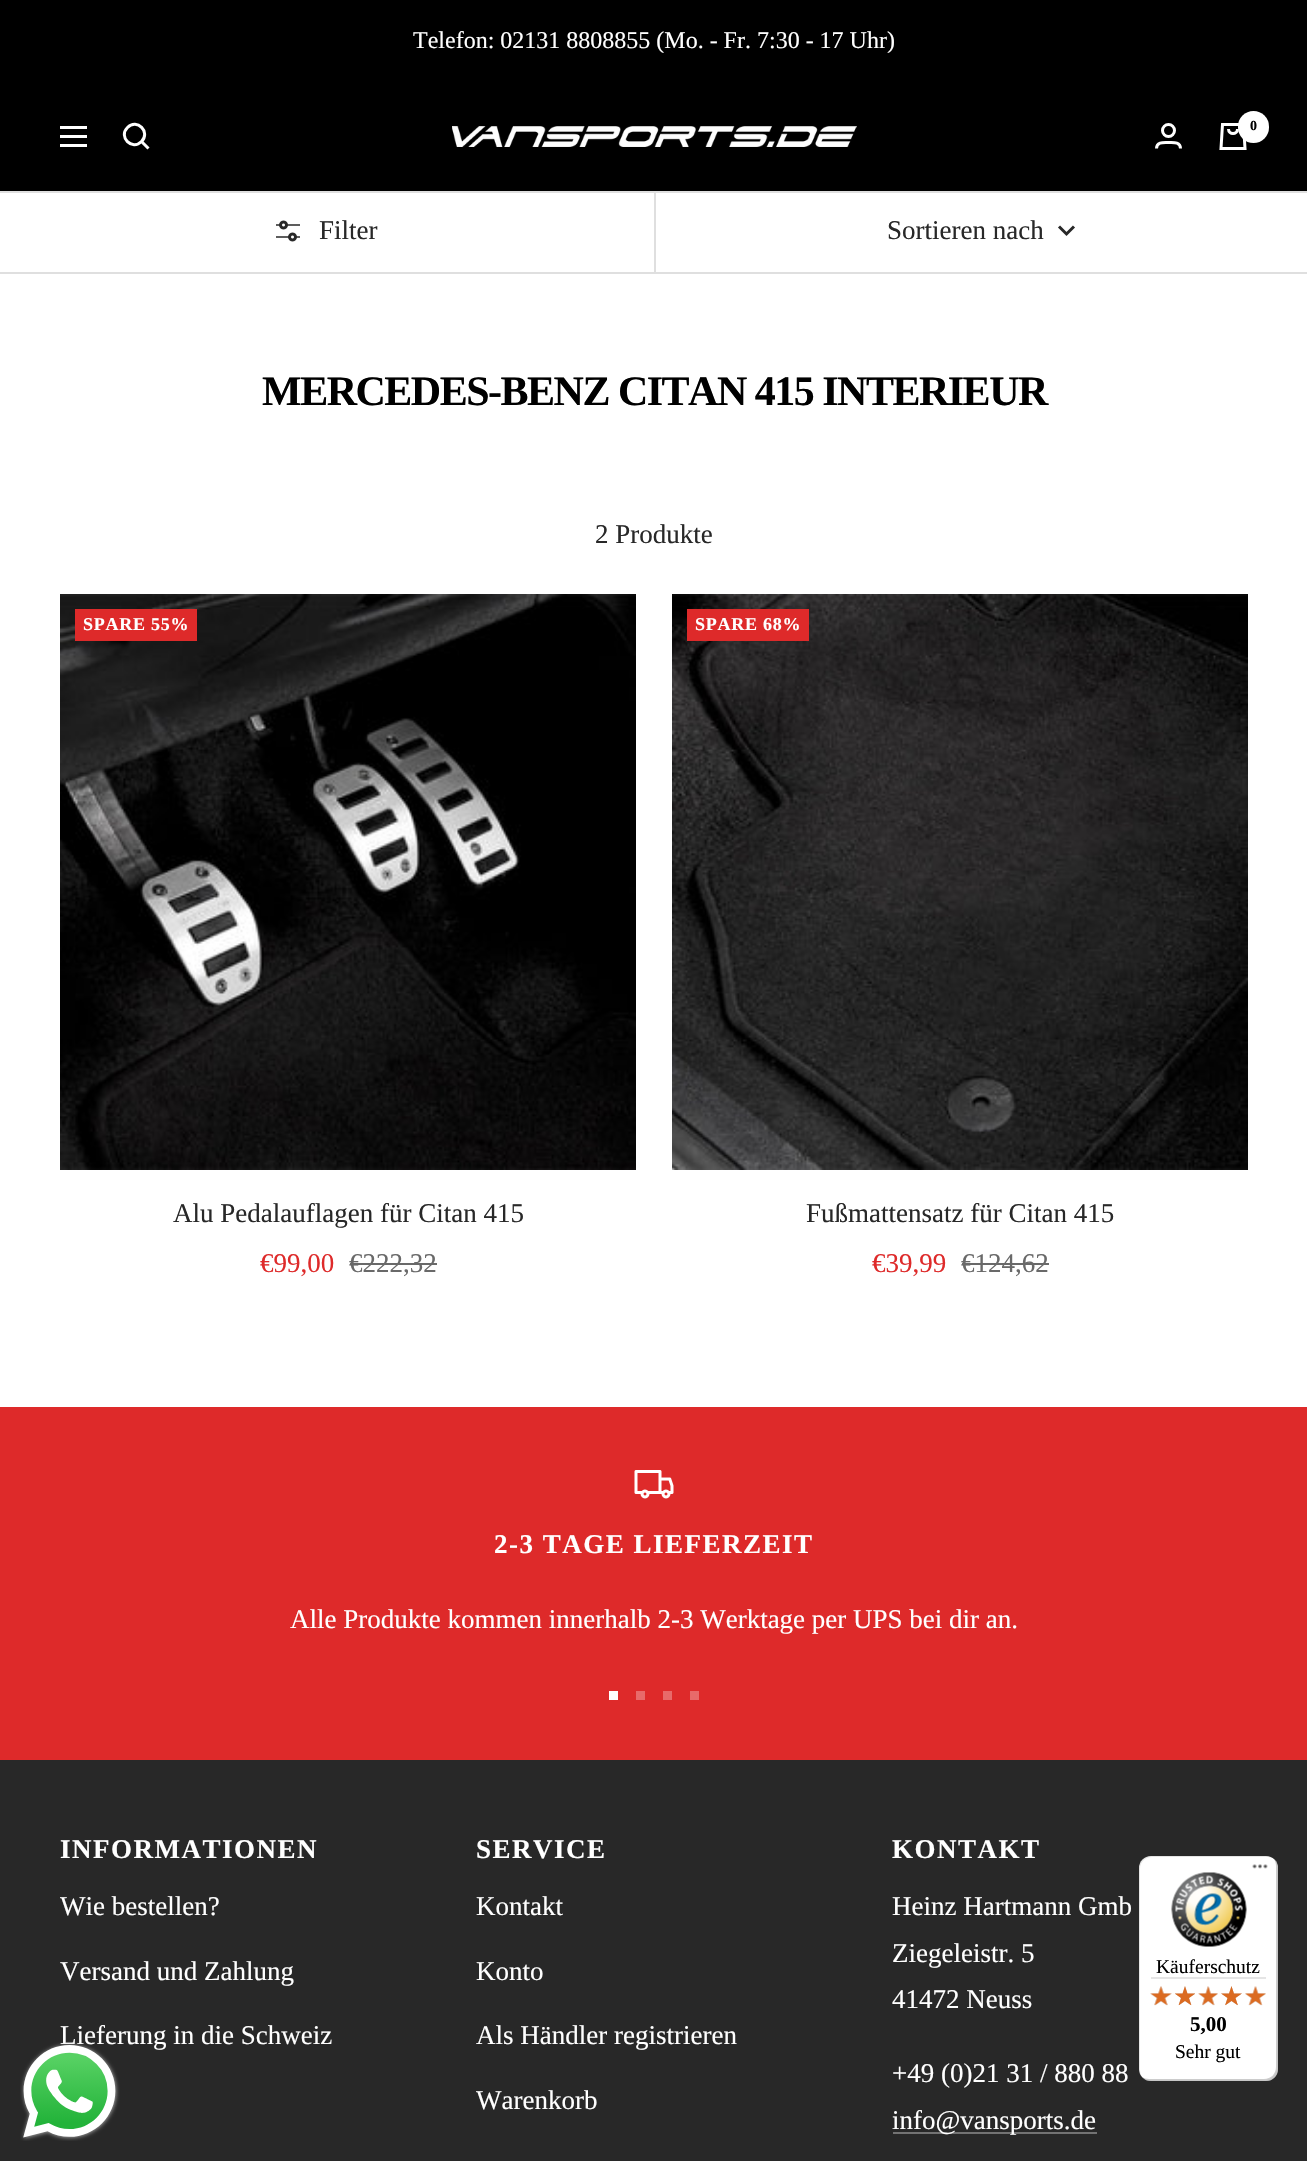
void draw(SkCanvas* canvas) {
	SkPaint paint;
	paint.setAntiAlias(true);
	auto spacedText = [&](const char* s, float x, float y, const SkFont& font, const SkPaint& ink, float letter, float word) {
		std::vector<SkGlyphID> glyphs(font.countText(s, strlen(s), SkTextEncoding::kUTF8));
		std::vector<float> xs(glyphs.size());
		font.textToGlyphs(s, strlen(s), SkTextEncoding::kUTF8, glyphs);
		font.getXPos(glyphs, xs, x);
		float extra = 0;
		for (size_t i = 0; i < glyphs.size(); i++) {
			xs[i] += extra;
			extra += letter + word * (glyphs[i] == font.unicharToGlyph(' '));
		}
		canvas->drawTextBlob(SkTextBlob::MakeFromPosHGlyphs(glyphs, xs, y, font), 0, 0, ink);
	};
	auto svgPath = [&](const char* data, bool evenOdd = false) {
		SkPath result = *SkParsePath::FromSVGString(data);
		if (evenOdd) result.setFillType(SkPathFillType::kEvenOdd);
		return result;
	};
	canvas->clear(0xffffffff);
	paint.setColor(0xff000000);
	canvas->drawRect(SkRect::MakeXYWH(0, 0, 1307, 191), paint);
	SkFont f1(fontMgr->matchFamilyStyle("Liberation Serif", SkFontStyle::Normal()), 24);
	f1.setSubpixel(true);
	paint.setColor(0xffffffff);
	canvas->drawString("Telefon: 02131 8808855 (Mo. - Fr. 7:30 - 17 Uhr)", 413, 48, f1, paint);
	paint.setStroke(true);
	paint.setStrokeWidth(3);
	canvas->drawPath(svgPath("M60 127.5H87M60 145.5H87ZM60 136.5H87Z"), paint);
	canvas->drawPath(svgPath("M141.5 141.5C151 132 137 118 127.5 127.5C118 137 132 151 141.5 141.5ZM141.5 141.5L148.5 148.5"), paint);
	canvas->drawImageRect(SkImages::DeferredFromEncodedData(SkData::MakeFromFileName("img1.png")), SkRect::MakeXYWH(452, 126, 405, 21), SkSamplingOptions());
	canvas->drawCircle(1168.5, 130.5, 6, paint);
	canvas->drawPath(svgPath("M1156.5 148.5C1156.5 141.5 1164 142.5 1168.5 142.5C1173 142.5 1180.5 141.5 1180.5 148.5"), paint);
	canvas->drawPath(svgPath("M1222.5 124.5H1243.5L1245 148.5H1221ZM1228.5 129C1228.5 135 1237.5 135 1237.5 129"), paint);
	paint.setStroke(false);
	canvas->drawRoundRect(SkRect::MakeXYWH(1238, 111, 31, 32), 15.5, 15.5, paint);
	SkFont f2(fontMgr->matchFamilyStyle("Liberation Serif", SkFontStyle::Bold()), 14);
	f2.setSubpixel(true);
	paint.setColor(0xff000000);
	canvas->drawString("0", 1250, 130, f2, paint);
	paint.setColor(0xffdfdfdf);
	canvas->drawRect(SkRect::MakeXYWH(0, 191, 1307, 2), paint);
	canvas->drawRect(SkRect::MakeXYWH(0, 272, 1307, 2), paint);
	canvas->drawImageRect(SkImages::DeferredFromEncodedData(SkData::MakeFromFileName("img2.png")), SkRect::MakeXYWH(276, 220, 24, 22), SkSamplingOptions());
	SkFont f3(fontMgr->matchFamilyStyle("Liberation Serif", SkFontStyle::Normal()), 27);
	f3.setSubpixel(true);
	paint.setColor(0xff282828);
	canvas->drawString("Filter", 319, 239, f3, paint);
	paint.setColor(0xffdfdfdf);
	canvas->drawRect(SkRect::MakeXYWH(654, 191, 2, 82), paint);
	paint.setColor(0xff282828);
	canvas->drawString("Sortieren nach", 887, 239, f3, paint);
	paint.setStroke(true);
	canvas->drawPath(svgPath("M1059 226.5L1066.5 234L1074 226.5"), paint);
	SkFont f4(fontMgr->matchFamilyStyle("Liberation Serif", SkFontStyle::Bold()), 42);
	f4.setSubpixel(true);
	paint.setStroke(false);
	paint.setColor(0xff000000);
	spacedText("MERCEDES-BENZ CITAN 415 INTERIEUR", 262, 405, f4, paint, -1.5, 0);
	paint.setColor(0xff282828);
	canvas->drawString("2 Produkte", 595, 543, f3, paint);
	canvas->drawImageRect(SkImages::DeferredFromEncodedData(SkData::MakeFromFileName("img3.png")), SkRect::MakeXYWH(60, 594, 576, 576), SkSamplingOptions());
	paint.setColor(0xffde2a2a);
	canvas->drawRect(SkRect::MakeXYWH(75, 609, 122, 32), paint);
	SkFont f5(fontMgr->matchFamilyStyle("Liberation Serif", SkFontStyle::Bold()), 18);
	f5.setSubpixel(true);
	paint.setColor(0xffffffff);
	spacedText("SPARE 55%", 83, 630, f5, paint, 0.75, 0);
	paint.setColor(0xff282828);
	canvas->drawString("Alu Pedalauflagen für Citan 415", 173, 1222, f3, paint);
	paint.setColor(0xffde2a2a);
	canvas->drawString("€99,00", 260, 1272, f3, paint);
	paint.setColor(0xff696969);
	canvas->drawString("€222,32", 349, 1272, f3, paint);
	canvas->drawRect(SkRect::MakeXYWH(350, 1263, 87, 2), paint);
	canvas->drawImageRect(SkImages::DeferredFromEncodedData(SkData::MakeFromFileName("img4.png")), SkRect::MakeXYWH(672, 594, 576, 576), SkSamplingOptions());
	paint.setColor(0xffde2a2a);
	canvas->drawRect(SkRect::MakeXYWH(687, 609, 122, 32), paint);
	paint.setColor(0xffffffff);
	spacedText("SPARE 68%", 695, 630, f5, paint, 0.75, 0);
	paint.setColor(0xff282828);
	canvas->drawString("Fußmattensatz für Citan 415", 806, 1222, f3, paint);
	paint.setColor(0xffde2a2a);
	canvas->drawString("€39,99", 872, 1272, f3, paint);
	paint.setColor(0xff696969);
	canvas->drawString("€124,62", 961, 1272, f3, paint);
	canvas->drawRect(SkRect::MakeXYWH(962, 1263, 87, 2), paint);
	paint.setColor(0xffde2a2a);
	canvas->drawRect(SkRect::MakeXYWH(0, 1407, 1307, 353), paint);
	canvas->drawImageRect(SkImages::DeferredFromEncodedData(SkData::MakeFromFileName("img5.png")), SkRect::MakeXYWH(634, 1470, 40, 29), SkSamplingOptions());
	SkFont f6(fontMgr->matchFamilyStyle("Liberation Serif", SkFontStyle::Bold()), 27);
	f6.setSubpixel(true);
	paint.setColor(0xffffffff);
	spacedText("2-3 TAGE LIEFERZEIT", 494, 1553, f6, paint, 1.5, 0);
	canvas->drawString("Alle Produkte kommen innerhalb 2-3 Werktage per UPS bei dir an.", 290, 1628, f3, paint);
	canvas->drawRect(SkRect::MakeXYWH(609, 1691, 9, 9), paint);
	paint.setColor(0xffe86a6a);
	canvas->drawRect(SkRect::MakeXYWH(636, 1691, 9, 9), paint);
	canvas->drawRect(SkRect::MakeXYWH(663, 1691, 9, 9), paint);
	canvas->drawRect(SkRect::MakeXYWH(690, 1691, 9, 9), paint);
	paint.setColor(0xff282828);
	canvas->drawRect(SkRect::MakeXYWH(0, 1760, 1307, 401), paint);
	paint.setColor(0xffffffff);
	spacedText("INFORMATIONEN", 60, 1858, f6, paint, 1.5, 0);
	canvas->drawString("Wie bestellen?", 60, 1915, f3, paint);
	canvas->drawString("Versand und Zahlung", 60, 1980, f3, paint);
	canvas->drawString("Lieferung in die Schweiz", 60, 2044, f3, paint);
	spacedText("SERVICE", 476, 1858, f6, paint, 1.5, 0);
	canvas->drawString("Kontakt", 476, 1915, f3, paint);
	canvas->drawString("Konto", 476, 1980, f3, paint);
	canvas->drawString("Als Händler registrieren", 476, 2044, f3, paint);
	canvas->drawString("Warenkorb", 476, 2109, f3, paint);
	spacedText("KONTAKT", 892, 1858, f6, paint, 1.5, 0);
	canvas->drawString("Heinz Hartmann Gmb", 892, 1915, f3, paint);
	canvas->drawString("Ziegeleistr. 5", 892, 1962, f3, paint);
	canvas->drawString("41472 Neuss", 892, 2008, f3, paint);
	canvas->drawString("+49 (0)21 31 / 880 88", 892, 2082, f3, paint);
	paint.setColor(0xff737373);
	canvas->drawRect(SkRect::MakeXYWH(893, 2132, 204, 2), paint);
	paint.setColor(0xffffffff);
	canvas->drawString("info@vansports.de", 892, 2129, f3, paint);
	canvas->drawRoundRect(SkRect::MakeXYWH(1139, 1856, 139, 225), 12, 12, paint);
	paint.setColor(0x1a000000);
	canvas->drawPath(svgPath("M1152 1857H1268L1273 1858C1271 1857 1268 1856 1266 1856H1151C1144 1856 1139 1861 1139 1868V2069C1139 2072 1140 2075 1142 2077C1141 2075 1140 2073 1140 2070V1869C1140 1862 1145 1857 1152 1857Z"), paint);
	paint.setColor(0x33000000);
	canvas->drawPath(svgPath("M1142 2077C1144 2079 1147 2081 1151 2081H1266C1273 2081 1278 2076 1278 2069V1868C1278 1864 1276 1861 1274 1859C1275 1861 1276 1863 1276 1866V2067C1276 2074 1271 2079 1264 2079H1149C1146 2079 1144 2078 1142 2077Z"), paint);
	paint.setColor(0x33323232);
	canvas->drawPath(svgPath("M1142 2077C1144 2079 1147 2081 1151 2081H1266C1273 2081 1278 2076 1278 2069V1868C1278 1865 1277 1862 1275 1860C1276 1862 1277 1864 1277 1867V2068C1277 2074 1272 2080 1265 2080H1150C1147 2080 1144 2079 1142 2077Z"), paint);
	paint.setColor(0x4dffffff);
	canvas->drawPath(svgPath("M1142 2077C1144 2079 1147 2081 1151 2081H1266C1273 2081 1278 2076 1278 2069V1868C1278 1865 1277 1862 1275 1860C1276 1862 1277 1864 1277 1867V2068C1277 2074 1272 2080 1265 2080H1150C1147 2080 1144 2079 1142 2077Z"), paint);
	canvas->drawImageRect(SkImages::DeferredFromEncodedData(SkData::MakeFromFileName("img6.png")), SkRect::MakeXYWH(1252, 1864, 16, 5), SkSamplingOptions());
	canvas->drawImageRect(SkImages::DeferredFromEncodedData(SkData::MakeFromFileName("img7.png")), SkRect::MakeXYWH(1171, 1872, 76, 75), SkSamplingOptions());
	SkFont f7(fontMgr->matchFamilyStyle("Liberation Serif", SkFontStyle::Normal()), 19.5);
	f7.setSubpixel(true);
	paint.setColor(0xff000000);
	canvas->drawString("Käuferschutz", 1156, 1973, f7, paint);
	paint.setColor(0xffe5e5e5);
	canvas->drawRect(SkRect::MakeXYWH(1151, 1977, 115, 2), paint);
	canvas->drawImageRect(SkImages::DeferredFromEncodedData(SkData::MakeFromFileName("img8.png")), SkRect::MakeXYWH(1150, 1986, 22, 20), SkSamplingOptions());
	canvas->drawImageRect(SkImages::DeferredFromEncodedData(SkData::MakeFromFileName("img9.png")), SkRect::MakeXYWH(1175, 1986, 20, 19), SkSamplingOptions());
	canvas->drawImageRect(SkImages::DeferredFromEncodedData(SkData::MakeFromFileName("img10.png")), SkRect::MakeXYWH(1198, 1986, 20, 20), SkSamplingOptions());
	canvas->drawImageRect(SkImages::DeferredFromEncodedData(SkData::MakeFromFileName("img11.png")), SkRect::MakeXYWH(1221, 1986, 21, 19), SkSamplingOptions());
	canvas->drawImageRect(SkImages::DeferredFromEncodedData(SkData::MakeFromFileName("img12.png")), SkRect::MakeXYWH(1245, 1986, 21, 20), SkSamplingOptions());
	canvas->drawImageRect(SkImages::DeferredFromEncodedData(SkData::MakeFromFileName("img13.png")), SkRect::MakeXYWH(1150, 1986, 22, 19), SkSamplingOptions());
	canvas->drawImageRect(SkImages::DeferredFromEncodedData(SkData::MakeFromFileName("img14.png")), SkRect::MakeXYWH(1175, 1986, 20, 20), SkSamplingOptions());
	canvas->drawImageRect(SkImages::DeferredFromEncodedData(SkData::MakeFromFileName("img15.png")), SkRect::MakeXYWH(1198, 1986, 20, 19), SkSamplingOptions());
	canvas->drawImageRect(SkImages::DeferredFromEncodedData(SkData::MakeFromFileName("img16.png")), SkRect::MakeXYWH(1221, 1986, 21, 20), SkSamplingOptions());
	canvas->drawImageRect(SkImages::DeferredFromEncodedData(SkData::MakeFromFileName("img17.png")), SkRect::MakeXYWH(1245, 1986, 21, 19), SkSamplingOptions());
	SkFont f8(fontMgr->matchFamilyStyle("Liberation Serif", SkFontStyle::Bold()), 21);
	f8.setSubpixel(true);
	paint.setColor(0xff000000);
	canvas->drawString("5,00", 1190, 2031, f8, paint);
	canvas->drawString("Sehr gut", 1175, 2058, f7, paint);
	canvas->drawImageRect(SkImages::DeferredFromEncodedData(SkData::MakeFromFileName("img18.png")), SkRect::MakeXYWH(20, 2041, 100, 100), SkSamplingOptions());
}
